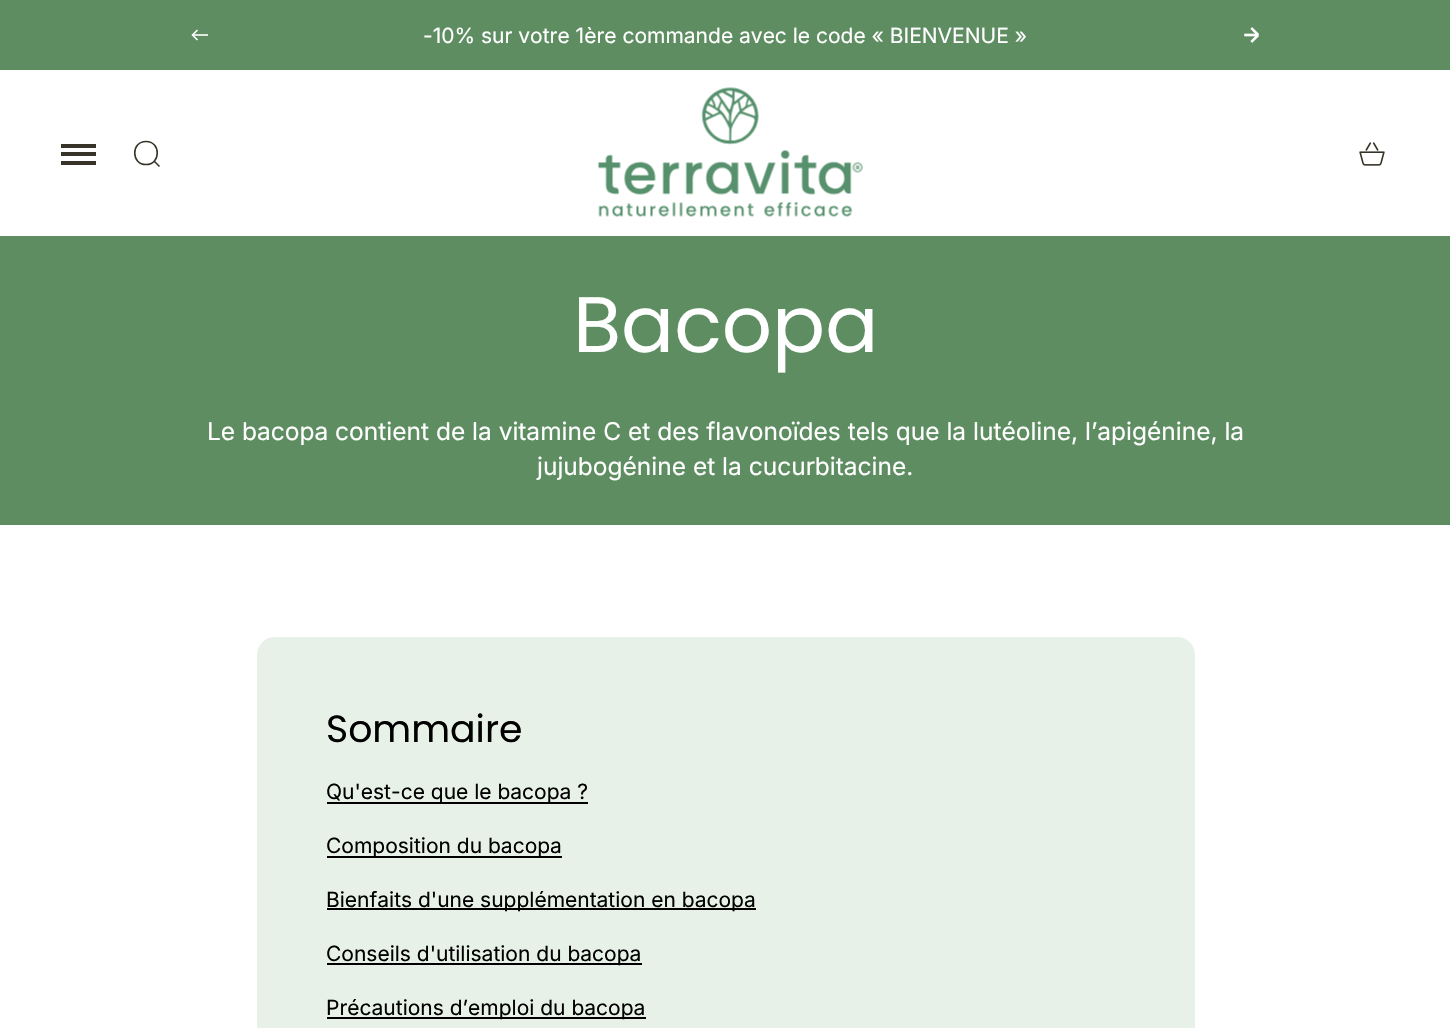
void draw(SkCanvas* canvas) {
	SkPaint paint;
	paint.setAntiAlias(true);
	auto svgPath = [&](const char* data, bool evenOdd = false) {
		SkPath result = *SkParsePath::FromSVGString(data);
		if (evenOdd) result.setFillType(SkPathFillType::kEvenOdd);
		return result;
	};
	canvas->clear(0xffffffff);
	paint.setColor(0xff5d8d61);
	canvas->drawRect(SkRect::MakeXYWH(0, 0, 1450, 70), paint);
	paint.setStroke(true);
	paint.setStrokeWidth(1.6);
	paint.setColor(0xffffffff);
	canvas->drawPath(svgPath("M197.5 40L192.5 35L197.5 30"), paint);
	paint.setStroke(false);
	paint.setColor(0xccffffff);
	canvas->drawRect(SkRect::MakeXYWH(193, 34, 15, 2), paint);
	SkFont f1(fontMgr->matchFamilyStyle("Inter", SkFontStyle::Normal()), 21);
	f1.setSubpixel(true);
	paint.setColor(0xffffffff);
	canvas->drawString("-10% sur votre 1ère commande avec le code « BIENVENUE »", 423, 43, f1, paint);
	canvas->drawImageRect(SkImages::DeferredFromEncodedData(SkData::MakeFromFileName("img1.png")), SkRect::MakeXYWH(1244, 27, 15, 16), SkSamplingOptions());
	paint.setColor(0xff383328);
	canvas->drawRect(SkRect::MakeXYWH(61, 144, 35, 4), paint);
	canvas->drawRect(SkRect::MakeXYWH(61, 152, 35, 4), paint);
	canvas->drawRect(SkRect::MakeXYWH(61, 161, 35, 4), paint);
	paint.setStroke(true);
	canvas->drawPath(svgPath("M146 164.5C161 164.5 161 141.5 146 141.5C131 141.5 131 164.5 146 164.5ZM154 161L159.5 166.5"), paint);
	canvas->drawImageRect(SkImages::DeferredFromEncodedData(SkData::MakeFromFileName("img2.png")), SkRect::MakeXYWH(598, 87, 265, 130), SkSamplingOptions());
	canvas->drawImageRect(SkImages::DeferredFromEncodedData(SkData::MakeFromFileName("img3.png")), SkRect::MakeXYWH(1359, 142, 26, 24), SkSamplingOptions());
	paint.setStroke(false);
	paint.setColor(0xff5d8d61);
	canvas->drawRect(SkRect::MakeXYWH(0, 236, 1450, 289), paint);
	SkFont f2(fontMgr->matchFamilyStyle("Poppins", SkFontStyle::Normal()), 78.5);
	f2.setSubpixel(true);
	paint.setColor(0xffffffff);
	canvas->drawString("Bacopa", 573, 352, f2, paint);
	SkFont f3(fontMgr->matchFamilyStyle("Inter", SkFontStyle::Normal()), 24.5);
	f3.setSubpixel(true);
	canvas->drawString("Le bacopa contient de la vitamine C et des flavonoïdes tels que la lutéoline, l’apigénine, la", 207, 440, f3, paint);
	canvas->drawString("jujubogénine et la cucurbitacine.", 537, 475, f3, paint);
	paint.setColor(0xffe8f1e8);
	canvas->drawRoundRect(SkRect::MakeXYWH(257, 637, 938, 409), 18, 18, paint);
	SkFont f4(fontMgr->matchFamilyStyle("Poppins", SkFontStyle::Normal()), 37.75);
	f4.setSubpixel(true);
	paint.setColor(0xff000000);
	canvas->drawString("Sommaire", 326, 742, f4, paint);
	canvas->drawRect(SkRect::MakeXYWH(327, 802, 261, 2), paint);
	canvas->drawString("Qu'est-ce que le bacopa ?", 326, 799, f1, paint);
	canvas->drawRect(SkRect::MakeXYWH(327, 856, 235, 2), paint);
	canvas->drawString("Composition du bacopa", 326, 853, f1, paint);
	canvas->drawRect(SkRect::MakeXYWH(327, 908, 429, 2), paint);
	canvas->drawString("Bienfaits d'une supplémentation en bacopa", 326, 907, f1, paint);
	canvas->drawRect(SkRect::MakeXYWH(327, 963, 315, 2), paint);
	canvas->drawString("Conseils d'utilisation du bacopa", 326, 961, f1, paint);
	canvas->drawRect(SkRect::MakeXYWH(327, 1017, 319, 2), paint);
	canvas->drawString("Précautions d’emploi du bacopa", 326, 1015, f1, paint);
}
